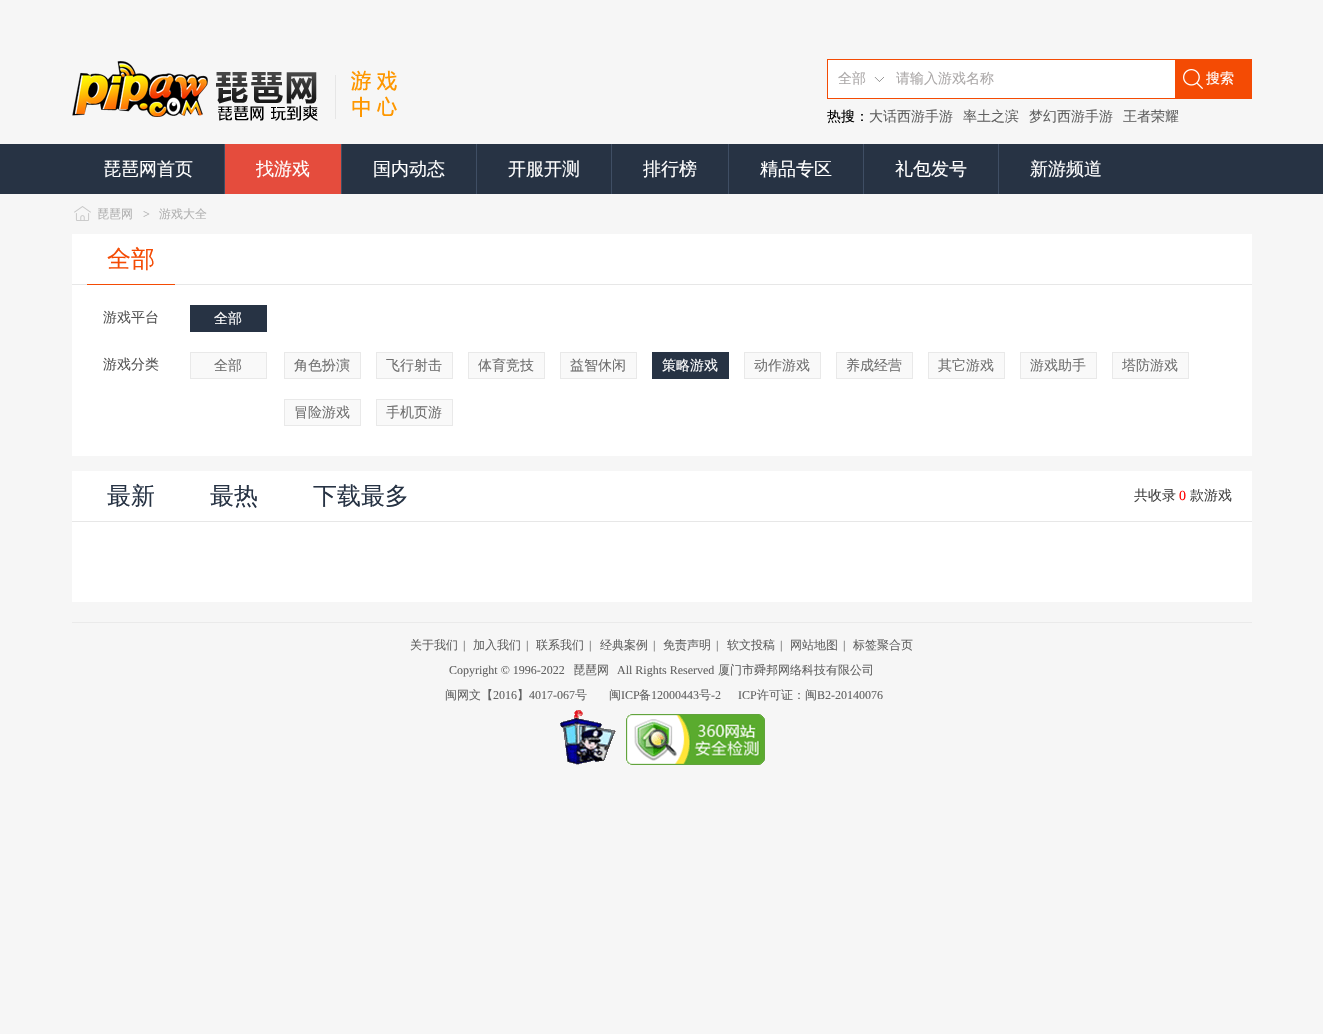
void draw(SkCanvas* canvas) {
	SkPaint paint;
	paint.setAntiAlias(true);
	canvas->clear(0xfff6f6f6);
	canvas->drawImageRect(SkImages::DeferredFromEncodedData(SkData::MakeFromFileName("img1.png")), SkRect::MakeXYWH(72, 61, 264, 60), SkSamplingOptions());
	canvas->drawImageRect(SkImages::DeferredFromEncodedData(SkData::MakeFromFileName("img2.png")), SkRect::MakeXYWH(351, 70, 46, 47), SkSamplingOptions());
	paint.setColor(0xffffffff);
	canvas->drawRect(SkRect::MakeXYWH(828, 60, 347, 38), paint);
	paint.setStroke(true);
	paint.setStrokeWidth(1);
	paint.setColor(0xfff44b04);
	canvas->drawRect(SkRect::MakeXYWH(827.5, 59.5, 424, 39), paint);
	canvas->drawImageRect(SkImages::DeferredFromEncodedData(SkData::MakeFromFileName("img3.png")), SkRect::MakeXYWH(874, 77, 10, 5), SkSamplingOptions());
	SkFont f1(fontMgr->matchFamilyStyle("WenQuanYi Zen Hei", SkFontStyle(500, SkFontStyle::kNormal_Width, SkFontStyle::kUpright_Slant)), 14);
	f1.setSubpixel(true);
	paint.setStroke(false);
	paint.setColor(0xffaca9a9);
	canvas->drawString("全部", 838, 83, f1, paint);
	canvas->drawString("请输入游戏名称", 896, 83, f1, paint);
	paint.setColor(0xfff44b04);
	canvas->drawRect(SkRect::MakeXYWH(1175, 60, 76, 38), paint);
	canvas->drawImageRect(SkImages::DeferredFromEncodedData(SkData::MakeFromFileName("img4.png")), SkRect::MakeXYWH(1183, 69, 20, 20), SkSamplingOptions());
	paint.setColor(0xffffffff);
	canvas->drawString("搜索", 1206, 83, f1, paint);
	paint.setColor(0xff000000);
	canvas->drawString("热搜：", 827, 121, f1, paint);
	paint.setColor(0xff616161);
	canvas->drawString("大话西游手游", 869, 121, f1, paint);
	canvas->drawString("率土之滨", 963, 121, f1, paint);
	canvas->drawString("梦幻西游手游", 1029, 121, f1, paint);
	canvas->drawString("王者荣耀", 1123, 121, f1, paint);
	paint.setColor(0xff273344);
	canvas->drawRect(SkRect::MakeXYWH(0, 144, 1323, 50), paint);
	paint.setColor(0xff3f4e64);
	canvas->drawRect(SkRect::MakeXYWH(224, 144, 1, 50), paint);
	SkFont f2(fontMgr->matchFamilyStyle("WenQuanYi Zen Hei", SkFontStyle(500, SkFontStyle::kNormal_Width, SkFontStyle::kUpright_Slant)), 18);
	f2.setSubpixel(true);
	paint.setColor(0xffffffff);
	canvas->drawString("琵琶网首页", 103, 175, f2, paint);
	paint.setColor(0xffe54c3d);
	canvas->drawRect(SkRect::MakeXYWH(225, 144, 116, 50), paint);
	paint.setColor(0xff3f4e64);
	canvas->drawRect(SkRect::MakeXYWH(341, 144, 1, 50), paint);
	paint.setColor(0xffffffff);
	canvas->drawString("找游戏", 256, 175, f2, paint);
	paint.setColor(0xff3f4e64);
	canvas->drawRect(SkRect::MakeXYWH(476, 144, 1, 50), paint);
	paint.setColor(0xffffffff);
	canvas->drawString("国内动态", 373, 175, f2, paint);
	paint.setColor(0xff3f4e64);
	canvas->drawRect(SkRect::MakeXYWH(611, 144, 1, 50), paint);
	paint.setColor(0xffffffff);
	canvas->drawString("开服开测", 508, 175, f2, paint);
	paint.setColor(0xff3f4e64);
	canvas->drawRect(SkRect::MakeXYWH(728, 144, 1, 50), paint);
	paint.setColor(0xffffffff);
	canvas->drawString("排行榜", 643, 175, f2, paint);
	paint.setColor(0xff3f4e64);
	canvas->drawRect(SkRect::MakeXYWH(863, 144, 1, 50), paint);
	paint.setColor(0xffffffff);
	canvas->drawString("精品专区", 760, 175, f2, paint);
	paint.setColor(0xff3f4e64);
	canvas->drawRect(SkRect::MakeXYWH(998, 144, 1, 50), paint);
	paint.setColor(0xffffffff);
	canvas->drawString("礼包发号", 895, 175, f2, paint);
	canvas->drawString("新游频道", 1030, 175, f2, paint);
	canvas->drawImageRect(SkImages::DeferredFromEncodedData(SkData::MakeFromFileName("img5.png")), SkRect::MakeXYWH(74, 206, 17, 15), SkSamplingOptions());
	SkFont f3(fontMgr->matchFamilyStyle("WenQuanYi Zen Hei", SkFontStyle(500, SkFontStyle::kNormal_Width, SkFontStyle::kUpright_Slant)), 12);
	f3.setSubpixel(true);
	paint.setColor(0xffb2b2b2);
	canvas->drawString("琵琶网", 97, 218, f3, paint);
	SkFont f4(fontMgr->matchFamilyStyle("Liberation Serif", SkFontStyle::Normal()), 12);
	f4.setSubpixel(true);
	canvas->drawString(">", 143, 218, f4, paint);
	canvas->drawString("游戏大全", 159, 218, f3, paint);
	paint.setColor(0xffffffff);
	canvas->drawRect(SkRect::MakeXYWH(72, 234, 1180, 368), paint);
	paint.setColor(0xffe7e7e7);
	canvas->drawRect(SkRect::MakeXYWH(72, 284, 1180, 1), paint);
	paint.setColor(0xfff44b04);
	canvas->drawRect(SkRect::MakeXYWH(87, 284, 88, 1), paint);
	SkFont f5(fontMgr->matchFamilyStyle("WenQuanYi Zen Hei", SkFontStyle(500, SkFontStyle::kNormal_Width, SkFontStyle::kUpright_Slant)), 24);
	f5.setSubpixel(true);
	canvas->drawString("全部", 107, 267, f5, paint);
	paint.setColor(0xff545454);
	canvas->drawString("游戏平台", 103, 322, f1, paint);
	paint.setColor(0xff273344);
	canvas->drawRect(SkRect::MakeXYWH(190, 305, 77, 27), paint);
	paint.setColor(0xffffffff);
	canvas->drawString("全部", 214, 323, f1, paint);
	paint.setColor(0xff545454);
	canvas->drawString("游戏分类", 103, 369, f1, paint);
	paint.setColor(0xfff9f9f9);
	canvas->drawRect(SkRect::MakeXYWH(190.5, 352.5, 76, 26), paint);
	paint.setStroke(true);
	paint.setColor(0xffe9e9e9);
	canvas->drawRect(SkRect::MakeXYWH(190.5, 352.5, 76, 26), paint);
	paint.setStroke(false);
	paint.setColor(0xff6f6f6f);
	canvas->drawString("全部", 214, 370, f1, paint);
	paint.setColor(0xfff9f9f9);
	canvas->drawRect(SkRect::MakeXYWH(284.5, 352.5, 76, 26), paint);
	paint.setStroke(true);
	paint.setColor(0xffe9e9e9);
	canvas->drawRect(SkRect::MakeXYWH(284.5, 352.5, 76, 26), paint);
	paint.setStroke(false);
	paint.setColor(0xff6f6f6f);
	canvas->drawString("角色扮演", 294, 370, f1, paint);
	paint.setColor(0xfff9f9f9);
	canvas->drawRect(SkRect::MakeXYWH(376.5, 352.5, 76, 26), paint);
	paint.setStroke(true);
	paint.setColor(0xffe9e9e9);
	canvas->drawRect(SkRect::MakeXYWH(376.5, 352.5, 76, 26), paint);
	paint.setStroke(false);
	paint.setColor(0xff6f6f6f);
	canvas->drawString("飞行射击", 386, 370, f1, paint);
	paint.setColor(0xfff9f9f9);
	canvas->drawRect(SkRect::MakeXYWH(468.5, 352.5, 76, 26), paint);
	paint.setStroke(true);
	paint.setColor(0xffe9e9e9);
	canvas->drawRect(SkRect::MakeXYWH(468.5, 352.5, 76, 26), paint);
	paint.setStroke(false);
	paint.setColor(0xff6f6f6f);
	canvas->drawString("体育竞技", 478, 370, f1, paint);
	paint.setColor(0xfff9f9f9);
	canvas->drawRect(SkRect::MakeXYWH(560.5, 352.5, 76, 26), paint);
	paint.setStroke(true);
	paint.setColor(0xffe9e9e9);
	canvas->drawRect(SkRect::MakeXYWH(560.5, 352.5, 76, 26), paint);
	paint.setStroke(false);
	paint.setColor(0xff6f6f6f);
	canvas->drawString("益智休闲", 570, 370, f1, paint);
	paint.setColor(0xff273344);
	canvas->drawRect(SkRect::MakeXYWH(652, 352, 77, 27), paint);
	paint.setColor(0xffffffff);
	canvas->drawString("策略游戏", 662, 370, f1, paint);
	paint.setColor(0xfff9f9f9);
	canvas->drawRect(SkRect::MakeXYWH(744.5, 352.5, 76, 26), paint);
	paint.setStroke(true);
	paint.setColor(0xffe9e9e9);
	canvas->drawRect(SkRect::MakeXYWH(744.5, 352.5, 76, 26), paint);
	paint.setStroke(false);
	paint.setColor(0xff6f6f6f);
	canvas->drawString("动作游戏", 754, 370, f1, paint);
	paint.setColor(0xfff9f9f9);
	canvas->drawRect(SkRect::MakeXYWH(836.5, 352.5, 76, 26), paint);
	paint.setStroke(true);
	paint.setColor(0xffe9e9e9);
	canvas->drawRect(SkRect::MakeXYWH(836.5, 352.5, 76, 26), paint);
	paint.setStroke(false);
	paint.setColor(0xff6f6f6f);
	canvas->drawString("养成经营", 846, 370, f1, paint);
	paint.setColor(0xfff9f9f9);
	canvas->drawRect(SkRect::MakeXYWH(928.5, 352.5, 76, 26), paint);
	paint.setStroke(true);
	paint.setColor(0xffe9e9e9);
	canvas->drawRect(SkRect::MakeXYWH(928.5, 352.5, 76, 26), paint);
	paint.setStroke(false);
	paint.setColor(0xff6f6f6f);
	canvas->drawString("其它游戏", 938, 370, f1, paint);
	paint.setColor(0xfff9f9f9);
	canvas->drawRect(SkRect::MakeXYWH(1020.5, 352.5, 76, 26), paint);
	paint.setStroke(true);
	paint.setColor(0xffe9e9e9);
	canvas->drawRect(SkRect::MakeXYWH(1020.5, 352.5, 76, 26), paint);
	paint.setStroke(false);
	paint.setColor(0xff6f6f6f);
	canvas->drawString("游戏助手", 1030, 370, f1, paint);
	paint.setColor(0xfff9f9f9);
	canvas->drawRect(SkRect::MakeXYWH(1112.5, 352.5, 76, 26), paint);
	paint.setStroke(true);
	paint.setColor(0xffe9e9e9);
	canvas->drawRect(SkRect::MakeXYWH(1112.5, 352.5, 76, 26), paint);
	paint.setStroke(false);
	paint.setColor(0xff6f6f6f);
	canvas->drawString("塔防游戏", 1122, 370, f1, paint);
	paint.setColor(0xfff9f9f9);
	canvas->drawRect(SkRect::MakeXYWH(284.5, 399.5, 76, 26), paint);
	paint.setStroke(true);
	paint.setColor(0xffe9e9e9);
	canvas->drawRect(SkRect::MakeXYWH(284.5, 399.5, 76, 26), paint);
	paint.setStroke(false);
	paint.setColor(0xff6f6f6f);
	canvas->drawString("冒险游戏", 294, 417, f1, paint);
	paint.setColor(0xfff9f9f9);
	canvas->drawRect(SkRect::MakeXYWH(376.5, 399.5, 76, 26), paint);
	paint.setStroke(true);
	paint.setColor(0xffe9e9e9);
	canvas->drawRect(SkRect::MakeXYWH(376.5, 399.5, 76, 26), paint);
	paint.setStroke(false);
	paint.setColor(0xff6f6f6f);
	canvas->drawString("手机页游", 386, 417, f1, paint);
	paint.setColor(0xfff6f6f6);
	canvas->drawRect(SkRect::MakeXYWH(72, 456, 1180, 15), paint);
	paint.setColor(0xffe7e7e7);
	canvas->drawRect(SkRect::MakeXYWH(72, 521, 1180, 1), paint);
	paint.setColor(0xff273344);
	canvas->drawString("最新", 107, 504, f5, paint);
	canvas->drawString("最热", 210, 504, f5, paint);
	canvas->drawString("下载最多", 313, 504, f5, paint);
	paint.setColor(0xff414141);
	canvas->drawString("共收录", 1134, 500, f1, paint);
	SkFont f6(fontMgr->matchFamilyStyle("Liberation Serif", SkFontStyle::Normal()), 14);
	f6.setSubpixel(true);
	paint.setColor(0xffff0000);
	canvas->drawString("0", 1179, 500, f6, paint);
	paint.setColor(0xff414141);
	canvas->drawString("款游戏", 1190, 500, f1, paint);
	paint.setColor(0xffeaeaea);
	canvas->drawRect(SkRect::MakeXYWH(72, 622, 1180, 1), paint);
	paint.setColor(0xff616161);
	canvas->drawString("关于我们", 410, 649, f3, paint);
	canvas->drawString("|", 463, 649, f4, paint);
	canvas->drawString("加入我们", 473, 649, f3, paint);
	canvas->drawString("|", 526, 649, f4, paint);
	canvas->drawString("联系我们", 536, 649, f3, paint);
	canvas->drawString("|", 589, 649, f4, paint);
	canvas->drawString("经典案例", 600, 649, f3, paint);
	canvas->drawString("|", 653, 649, f4, paint);
	canvas->drawString("免责声明", 663, 649, f3, paint);
	canvas->drawString("|", 716, 649, f4, paint);
	canvas->drawString("软文投稿", 727, 649, f3, paint);
	canvas->drawString("|", 780, 649, f4, paint);
	canvas->drawString("网站地图", 790, 649, f3, paint);
	canvas->drawString("|", 843, 649, f4, paint);
	canvas->drawString("标签聚合页", 853, 649, f3, paint);
	canvas->drawString("Copyright © 1996-2022", 449, 674, f4, paint);
	canvas->drawString("琵琶网", 573, 674, f3, paint);
	canvas->drawString("All Rights Reserved", 617, 674, f4, paint);
	canvas->drawString("厦门市舜邦网络科技有限公司", 718, 674, f3, paint);
	canvas->drawString("闽网文【", 445, 699, f3, paint);
	canvas->drawString("2016", 493, 699, f4, paint);
	canvas->drawString("】", 517, 699, f3, paint);
	canvas->drawString("4017-067", 529, 699, f4, paint);
	canvas->drawString("号", 575, 699, f3, paint);
	canvas->drawString("闽", 609, 699, f3, paint);
	canvas->drawString("ICP", 621, 699, f4, paint);
	canvas->drawString("备", 639, 699, f3, paint);
	canvas->drawString("12000443", 651, 699, f4, paint);
	canvas->drawString("号", 699, 699, f3, paint);
	canvas->drawString("-2", 711, 699, f4, paint);
	canvas->drawString("ICP", 738, 699, f4, paint);
	canvas->drawString("许可证：闽", 757, 699, f3, paint);
	canvas->drawString("B2-20140076", 817, 699, f4, paint);
	canvas->drawImageRect(SkImages::DeferredFromEncodedData(SkData::MakeFromFileName("img6.png")), SkRect::MakeXYWH(560, 710, 56, 55), SkSamplingOptions());
	canvas->drawImageRect(SkImages::DeferredFromEncodedData(SkData::MakeFromFileName("img7.png")), SkRect::MakeXYWH(626, 714, 139, 51), SkSamplingOptions());
}
